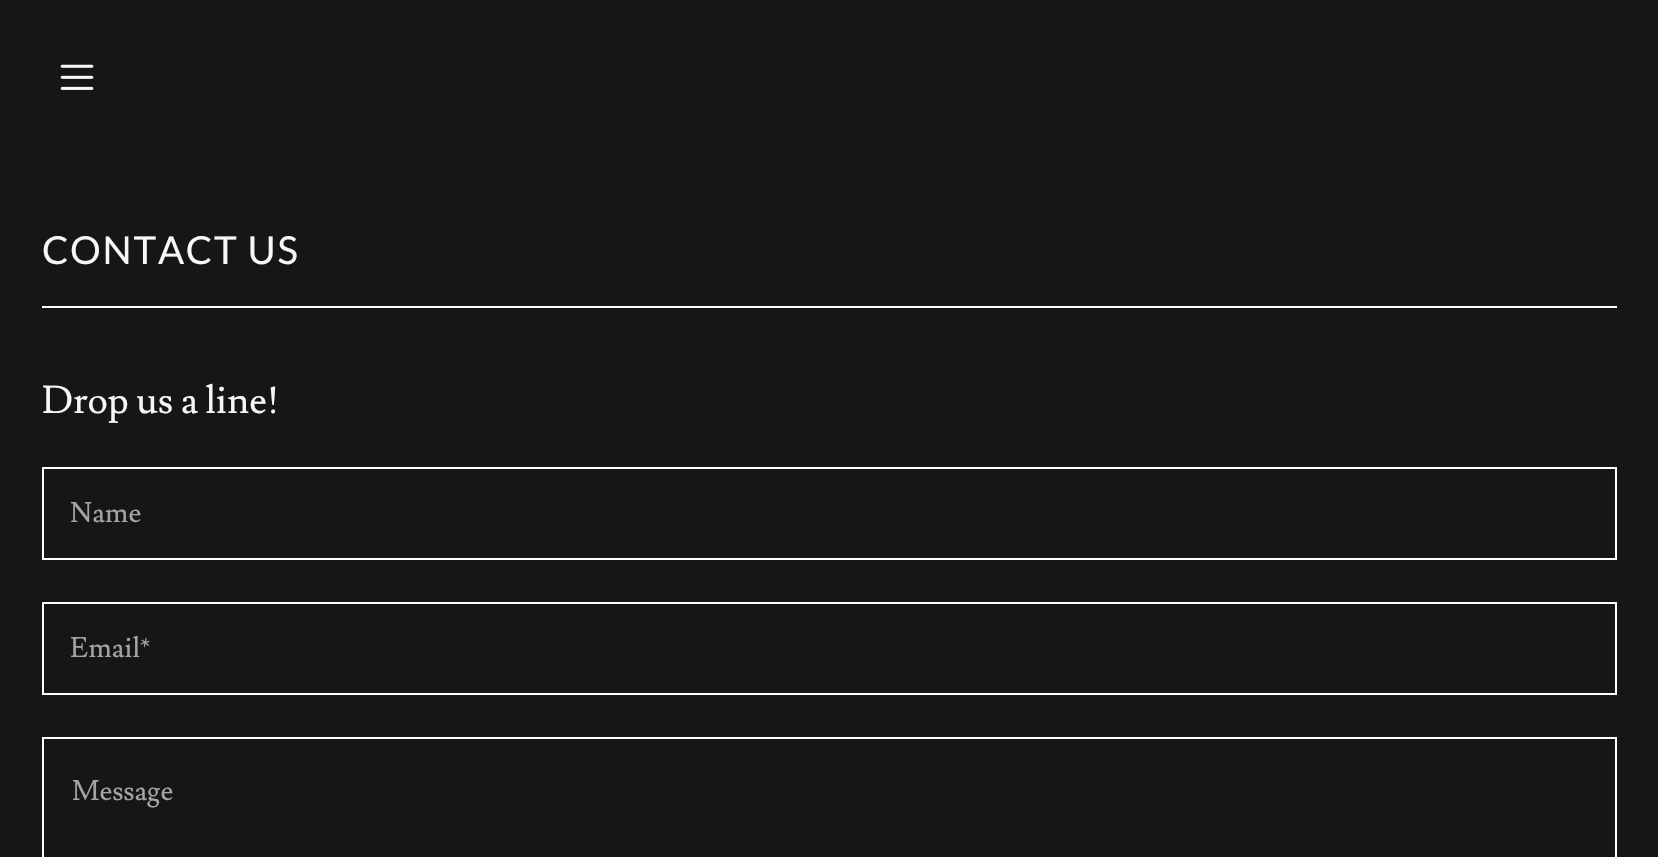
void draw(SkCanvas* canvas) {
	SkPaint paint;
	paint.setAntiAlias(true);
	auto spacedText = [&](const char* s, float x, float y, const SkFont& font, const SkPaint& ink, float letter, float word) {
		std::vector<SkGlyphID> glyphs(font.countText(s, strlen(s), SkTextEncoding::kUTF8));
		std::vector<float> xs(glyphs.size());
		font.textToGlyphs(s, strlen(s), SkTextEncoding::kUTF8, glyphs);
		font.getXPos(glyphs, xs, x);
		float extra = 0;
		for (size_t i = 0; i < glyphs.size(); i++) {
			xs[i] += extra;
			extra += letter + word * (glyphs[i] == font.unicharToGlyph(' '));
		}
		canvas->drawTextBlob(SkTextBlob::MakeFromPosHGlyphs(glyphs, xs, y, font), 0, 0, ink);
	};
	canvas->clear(0xff161616);
	canvas->drawImageRect(SkImages::DeferredFromEncodedData(SkData::MakeFromFileName("img1.png")), SkRect::MakeXYWH(60, 64, 34, 26), SkSamplingOptions());
	SkFont f1(fontMgr->matchFamilyStyle("Lato", SkFontStyle::Normal()), 38.5);
	f1.setSubpixel(true);
	paint.setColor(0xfff7f7f7);
	spacedText("CONTACT US", 42, 264, f1, paint, 1.75, 0);
	paint.setColor(0xffffffff);
	canvas->drawRect(SkRect::MakeXYWH(42, 306, 1575, 2), paint);
	SkFont f2(fontMgr->matchFamilyStyle("Lusitana", SkFontStyle::Normal()), 38.5);
	f2.setSubpixel(true);
	paint.setColor(0xfff7f7f7);
	canvas->drawString("Drop us a line!", 42, 413, f2, paint);
	paint.setStroke(true);
	paint.setStrokeWidth(2);
	paint.setColor(0xffffffff);
	canvas->drawRect(SkRect::MakeXYWH(43, 468, 1573, 91), paint);
	SkFont f3(fontMgr->matchFamilyStyle("Lusitana", SkFontStyle::Normal()), 28);
	f3.setSubpixel(true);
	paint.setStroke(false);
	paint.setColor(0xffa4a4a4);
	canvas->drawString("Name", 70, 522, f3, paint);
	paint.setStroke(true);
	paint.setColor(0xffffffff);
	canvas->drawRect(SkRect::MakeXYWH(43, 603, 1573, 91), paint);
	paint.setStroke(false);
	paint.setColor(0xffa4a4a4);
	canvas->drawString("Email*", 70, 657, f3, paint);
	paint.setStroke(true);
	paint.setColor(0xffffffff);
	canvas->drawRect(SkRect::MakeXYWH(43, 738, 1573, 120), paint);
	paint.setStroke(false);
	paint.setColor(0xffa4a4a4);
	canvas->drawString("Message", 72, 800, f3, paint);
}
